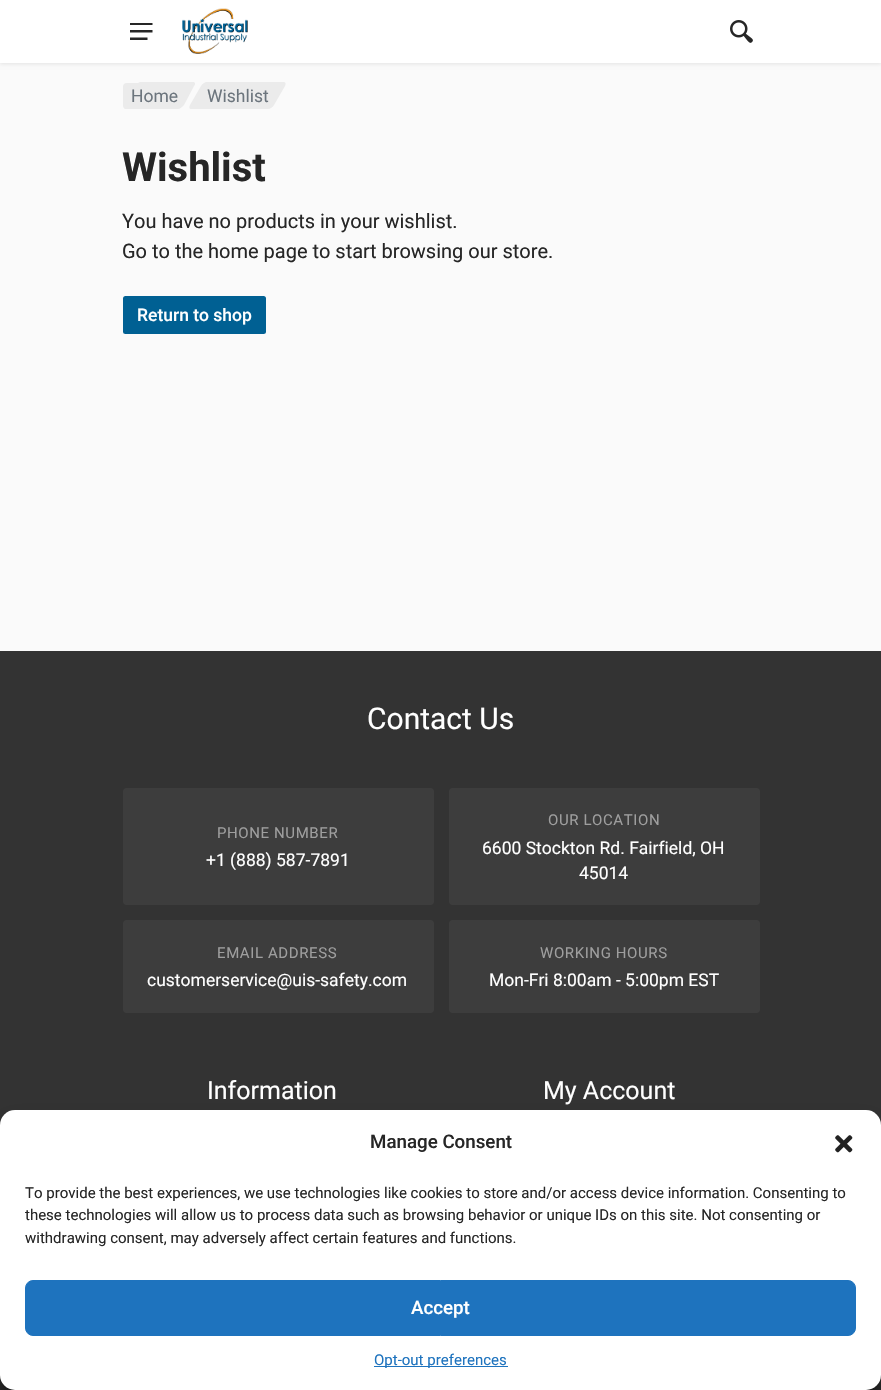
void draw(SkCanvas* canvas) {
	SkPaint paint;
	paint.setAntiAlias(true);
	auto spacedText = [&](const char* s, float x, float y, const SkFont& font, const SkPaint& ink, float letter, float word) {
		std::vector<SkGlyphID> glyphs(font.countText(s, strlen(s), SkTextEncoding::kUTF8));
		std::vector<float> xs(glyphs.size());
		font.textToGlyphs(s, strlen(s), SkTextEncoding::kUTF8, glyphs);
		font.getXPos(glyphs, xs, x);
		float extra = 0;
		for (size_t i = 0; i < glyphs.size(); i++) {
			xs[i] += extra;
			extra += letter + word * (glyphs[i] == font.unicharToGlyph(' '));
		}
		canvas->drawTextBlob(SkTextBlob::MakeFromPosHGlyphs(glyphs, xs, y, font), 0, 0, ink);
	};
	auto svgPath = [&](const char* data, bool evenOdd = false) {
		SkPath result = *SkParsePath::FromSVGString(data);
		if (evenOdd) result.setFillType(SkPathFillType::kEvenOdd);
		return result;
	};
	canvas->clear(0xfffafafa);
	paint.setColor(0x17000000);
	paint.setMaskFilter(SkMaskFilter::MakeBlur(kNormal_SkBlurStyle, 2));
	canvas->drawRect(SkRect::MakeXYWH(0, 1, 881, 63), paint);
	paint.setMaskFilter(nullptr);
	paint.setColor(0xffffffff);
	canvas->drawRect(SkRect::MakeXYWH(0, 0, 881, 63), paint);
	canvas->drawImageRect(SkImages::DeferredFromEncodedData(SkData::MakeFromFileName("img1.png")), SkRect::MakeXYWH(130, 23, 23, 17), SkSamplingOptions());
	canvas->drawImageRect(SkImages::DeferredFromEncodedData(SkData::MakeFromFileName("img2.png")), SkRect::MakeXYWH(182, 8, 66, 46), SkSamplingOptions());
	canvas->drawImageRect(SkImages::DeferredFromEncodedData(SkData::MakeFromFileName("img3.png")), SkRect::MakeXYWH(730, 20, 23, 23), SkSamplingOptions());
	paint.setColor(0xffebebeb);
	canvas->drawPath(svgPath("M141 82H193C195 82 196 84 194 86L184 105C182 107 180 109 178 109H126C124 109 123 107 124 105L135 86C136 84 139 82 141 82Z"), paint);
	canvas->drawRoundRect(SkRect::MakeXYWH(123, 83, 48, 26), 4, 4, paint);
	SkFont f1(fontMgr->matchFamilyStyle("Roboto", SkFontStyle::Normal()), 17.5);
	f1.setSubpixel(true);
	paint.setColor(0xff6c757d);
	canvas->drawString("Home", 131, 102, f1, paint);
	paint.setColor(0xffebebeb);
	canvas->drawPath(svgPath("M207 82H283C286 82 286 84 285 86L274 105C273 107 270 109 268 109H191C189 109 189 107 190 105L201 86C202 84 205 82 207 82Z"), paint);
	paint.setColor(0xff6c757d);
	canvas->drawString("Wishlist", 207, 102, f1, paint);
	SkFont f2(fontMgr->matchFamilyStyle("Roboto", SkFontStyle::Bold()), 40);
	f2.setSubpixel(true);
	paint.setColor(0xff262626);
	canvas->drawString("Wishlist", 122, 181, f2, paint);
	SkFont f3(fontMgr->matchFamilyStyle("Roboto", SkFontStyle::Normal()), 20);
	f3.setSubpixel(true);
	canvas->drawString("You have no products in your wishlist.", 122, 228, f3, paint);
	canvas->drawString("Go to the home page to start browsing our store.", 122, 258, f3, paint);
	paint.setColor(0xff006093);
	canvas->drawRoundRect(SkRect::MakeXYWH(123, 296, 143, 38), 2.5, 2.5, paint);
	SkFont f4(fontMgr->matchFamilyStyle("Roboto", SkFontStyle(500, SkFontStyle::kNormal_Width, SkFontStyle::kUpright_Slant)), 17.5);
	f4.setSubpixel(true);
	paint.setColor(0xffffffff);
	canvas->drawString("Return to shop", 137, 321, f4, paint);
	paint.setColor(0xff333333);
	canvas->drawRect(SkRect::MakeXYWH(0, 651, 881, 474), paint);
	SkFont f5(fontMgr->matchFamilyStyle("Roboto", SkFontStyle::Normal()), 30);
	f5.setSubpixel(true);
	paint.setColor(0xffffffff);
	canvas->drawString("Contact Us", 367, 729, f5, paint);
	paint.setColor(0xff3d3d3d);
	canvas->drawRoundRect(SkRect::MakeXYWH(123, 788, 311, 117), 4, 4, paint);
	SkFont f6(fontMgr->matchFamilyStyle("Roboto", SkFontStyle::Normal()), 15);
	f6.setSubpixel(true);
	paint.setColor(0xff9e9e9e);
	spacedText("PHONE NUMBER", 217, 838, f6, paint, 0.6, 0);
	paint.setColor(0xffffffff);
	canvas->drawString("+1 (888) 587-7891", 206, 866, f1, paint);
	paint.setColor(0xff3d3d3d);
	canvas->drawRoundRect(SkRect::MakeXYWH(449, 788, 311, 117), 4, 4, paint);
	paint.setColor(0xff9e9e9e);
	spacedText("OUR LOCATION", 548, 825, f6, paint, 0.6, 0);
	paint.setColor(0xffffffff);
	canvas->drawString("6600 Stockton Rd. Fairfield, OH", 482, 854, f1, paint);
	canvas->drawString("45014", 579, 879, f1, paint);
	paint.setColor(0xff3d3d3d);
	canvas->drawRoundRect(SkRect::MakeXYWH(123, 920, 311, 93), 4, 4, paint);
	paint.setColor(0xff9e9e9e);
	spacedText("EMAIL ADDRESS", 217, 958, f6, paint, 0.6, 0);
	paint.setColor(0xffffffff);
	canvas->drawString("customerservice@uis-safety.com", 147, 986, f1, paint);
	paint.setColor(0xff3d3d3d);
	canvas->drawRoundRect(SkRect::MakeXYWH(449, 920, 311, 93), 4, 4, paint);
	paint.setColor(0xff9e9e9e);
	spacedText("WORKING HOURS", 540, 958, f6, paint, 0.6, 0);
	paint.setColor(0xffffffff);
	canvas->drawString("Mon-Fri 8:00am - 5:00pm EST", 489, 986, f1, paint);
	SkFont f7(fontMgr->matchFamilyStyle("Roboto", SkFontStyle::Normal()), 25);
	f7.setSubpixel(true);
	canvas->drawString("Information", 207, 1099, f7, paint);
	canvas->drawString("My Account", 543, 1099, f7, paint);
	paint.setColor(0xff2b2b2b);
	canvas->drawRect(SkRect::MakeXYWH(0, 1375, 881, 15), paint);
	paint.setColor(0x3b000000);
	paint.setMaskFilter(SkMaskFilter::MakeBlur(kNormal_SkBlurStyle, 4));
	canvas->drawRoundRect(SkRect::MakeXYWH(0, 1118, 881, 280), 15, 15, paint);
	paint.setMaskFilter(nullptr);
	paint.setColor(0x30000000);
	paint.setMaskFilter(SkMaskFilter::MakeBlur(kNormal_SkBlurStyle, 12.5));
	canvas->drawRoundRect(SkRect::MakeXYWH(0, 1123, 881, 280), 15, 15, paint);
	paint.setMaskFilter(nullptr);
	paint.setColor(0xffffffff);
	canvas->drawRoundRect(SkRect::MakeXYWH(0, 1110, 881, 280), 15, 15, paint);
	SkFont f8(fontMgr->matchFamilyStyle("Roboto", SkFontStyle(500, SkFontStyle::kNormal_Width, SkFontStyle::kUpright_Slant)), 18.75);
	f8.setSubpixel(true);
	paint.setColor(0xff262626);
	canvas->drawString("Manage Consent", 370, 1148, f8, paint);
	canvas->drawImageRect(SkImages::DeferredFromEncodedData(SkData::MakeFromFileName("img4.png")), SkRect::MakeXYWH(835, 1135, 18, 18), SkSamplingOptions());
	canvas->drawString("To provide the best experiences, we use technologies like cookies to store and/or access device information. Consenting to", 25, 1198, f6, paint);
	canvas->drawString("these technologies will allow us to process data such as browsing behavior or unique IDs on this site. Not consenting or", 25, 1220, f6, paint);
	canvas->drawString("withdrawing consent, may adversely affect certain features and functions.", 25, 1243, f6, paint);
	paint.setColor(0xff1e73be);
	canvas->drawRoundRect(SkRect::MakeXYWH(25.5, 1280.5, 830, 55), 7.5, 7.5, paint);
	paint.setStroke(true);
	paint.setStrokeWidth(1);
	canvas->drawRoundRect(SkRect::MakeXYWH(25.5, 1280.5, 830, 55), 7.5, 7.5, paint);
	paint.setStroke(false);
	paint.setColor(0xffffffff);
	canvas->drawString("Accept", 411, 1314, f8, paint);
	paint.setColor(0xff1e73be);
	canvas->drawRect(SkRect::MakeXYWH(374, 1366, 134, 1), paint);
	canvas->drawString("Opt-out preferences", 374, 1365, f6, paint);
}
